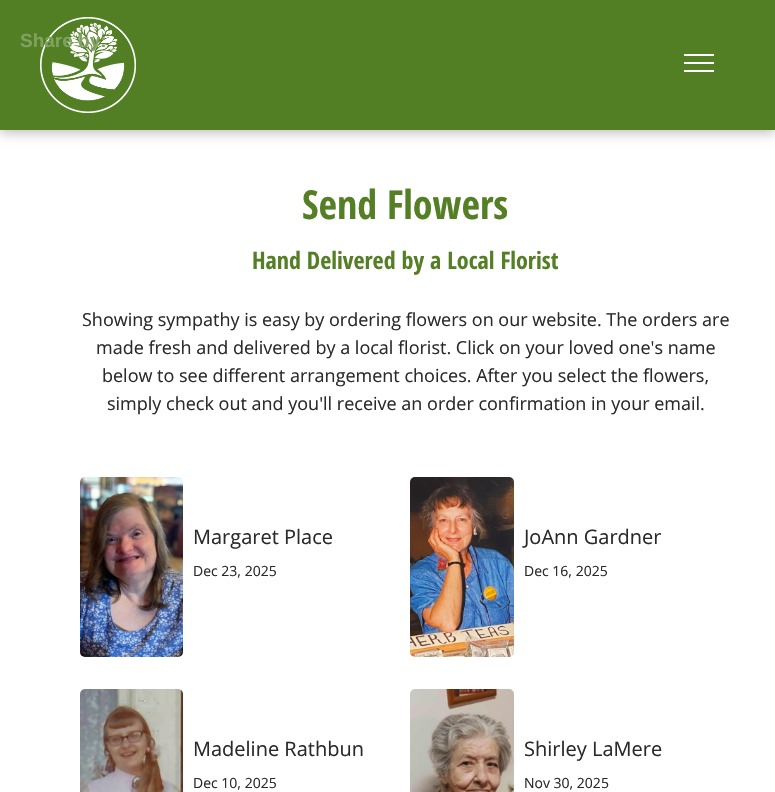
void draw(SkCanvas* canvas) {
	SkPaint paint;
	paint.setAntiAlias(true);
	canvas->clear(0xffffffff);
	paint.setColor(0x40000000);
	paint.setMaskFilter(SkMaskFilter::MakeBlur(kNormal_SkBlurStyle, 5.5));
	canvas->drawRect(SkRect::MakeXYWH(0, 3, 775, 130), paint);
	paint.setMaskFilter(nullptr);
	paint.setColor(0xff527f24);
	canvas->drawRect(SkRect::MakeXYWH(0, 0, 775, 130), paint);
	canvas->drawImageRect(SkImages::DeferredFromEncodedData(SkData::MakeFromFileName("img1.png")), SkRect::MakeXYWH(40, 17, 96, 96), SkSamplingOptions());
	SkFont f1(fontMgr->matchFamilyStyle("Liberation Sans", SkFontStyle::Bold()), 19);
	f1.setSubpixel(true);
	paint.setColor(0xff80a15f);
	canvas->drawString("Share by:", 20, 47, f1, paint);
	paint.setColor(0xffffffff);
	canvas->drawRect(SkRect::MakeXYWH(684, 54, 30, 2), paint);
	canvas->drawRect(SkRect::MakeXYWH(684, 62, 30, 2), paint);
	canvas->drawRect(SkRect::MakeXYWH(684, 70, 30, 2), paint);
	SkFont f2(fontMgr->matchFamilyStyle("Open Sans Condensed", SkFontStyle::Bold()), 40);
	f2.setSubpixel(true);
	paint.setColor(0xff547f24);
	canvas->drawString("Send Flowers", 302, 219, f2, paint);
	SkFont f3(fontMgr->matchFamilyStyle("Open Sans Condensed", SkFontStyle::Bold()), 24);
	f3.setSubpixel(true);
	canvas->drawString("Hand Delivered by a Local Florist", 252, 269, f3, paint);
	SkFont f4(fontMgr->matchFamilyStyle("Open Sans", SkFontStyle::Normal()), 18);
	f4.setSubpixel(true);
	paint.setColor(0xff2a2a2a);
	canvas->drawString("Showing sympathy is easy by ordering flowers on our website. The orders are", 82, 326, f4, paint);
	canvas->drawString("made fresh and delivered by a local florist. Click on your loved one's name", 96, 354, f4, paint);
	canvas->drawString("below to see different arrangement choices. After you select the flowers,", 102, 382, f4, paint);
	canvas->drawString("simply check out and you'll receive an order confirmation in your email.", 107, 410, f4, paint);
	canvas->drawImageRect(SkImages::DeferredFromEncodedData(SkData::MakeFromFileName("img2.png")), SkRect::MakeXYWH(80, 477, 103, 180), SkSamplingOptions());
	SkFont f5(fontMgr->matchFamilyStyle("Open Sans", SkFontStyle::Normal()), 20);
	f5.setSubpixel(true);
	canvas->drawString("Margaret Place", 193, 544, f5, paint);
	SkFont f6(fontMgr->matchFamilyStyle("Open Sans", SkFontStyle::Normal()), 14);
	f6.setSubpixel(true);
	canvas->drawString("Dec 23, 2025", 193, 576, f6, paint);
	canvas->drawImageRect(SkImages::DeferredFromEncodedData(SkData::MakeFromFileName("img3.png")), SkRect::MakeXYWH(410, 477, 104, 180), SkSamplingOptions());
	canvas->drawString("JoAnn Gardner", 524, 544, f5, paint);
	canvas->drawString("Dec 16, 2025", 524, 576, f6, paint);
	canvas->drawImageRect(SkImages::DeferredFromEncodedData(SkData::MakeFromFileName("img4.png")), SkRect::MakeXYWH(80, 689, 103, 103), SkSamplingOptions());
	canvas->drawString("Madeline Rathbun", 193, 756, f5, paint);
	canvas->drawString("Dec 10, 2025", 193, 788, f6, paint);
	canvas->drawImageRect(SkImages::DeferredFromEncodedData(SkData::MakeFromFileName("img5.png")), SkRect::MakeXYWH(410, 689, 104, 103), SkSamplingOptions());
	canvas->drawString("Shirley LaMere", 524, 756, f5, paint);
	canvas->drawString("Nov 30, 2025", 524, 788, f6, paint);
}
